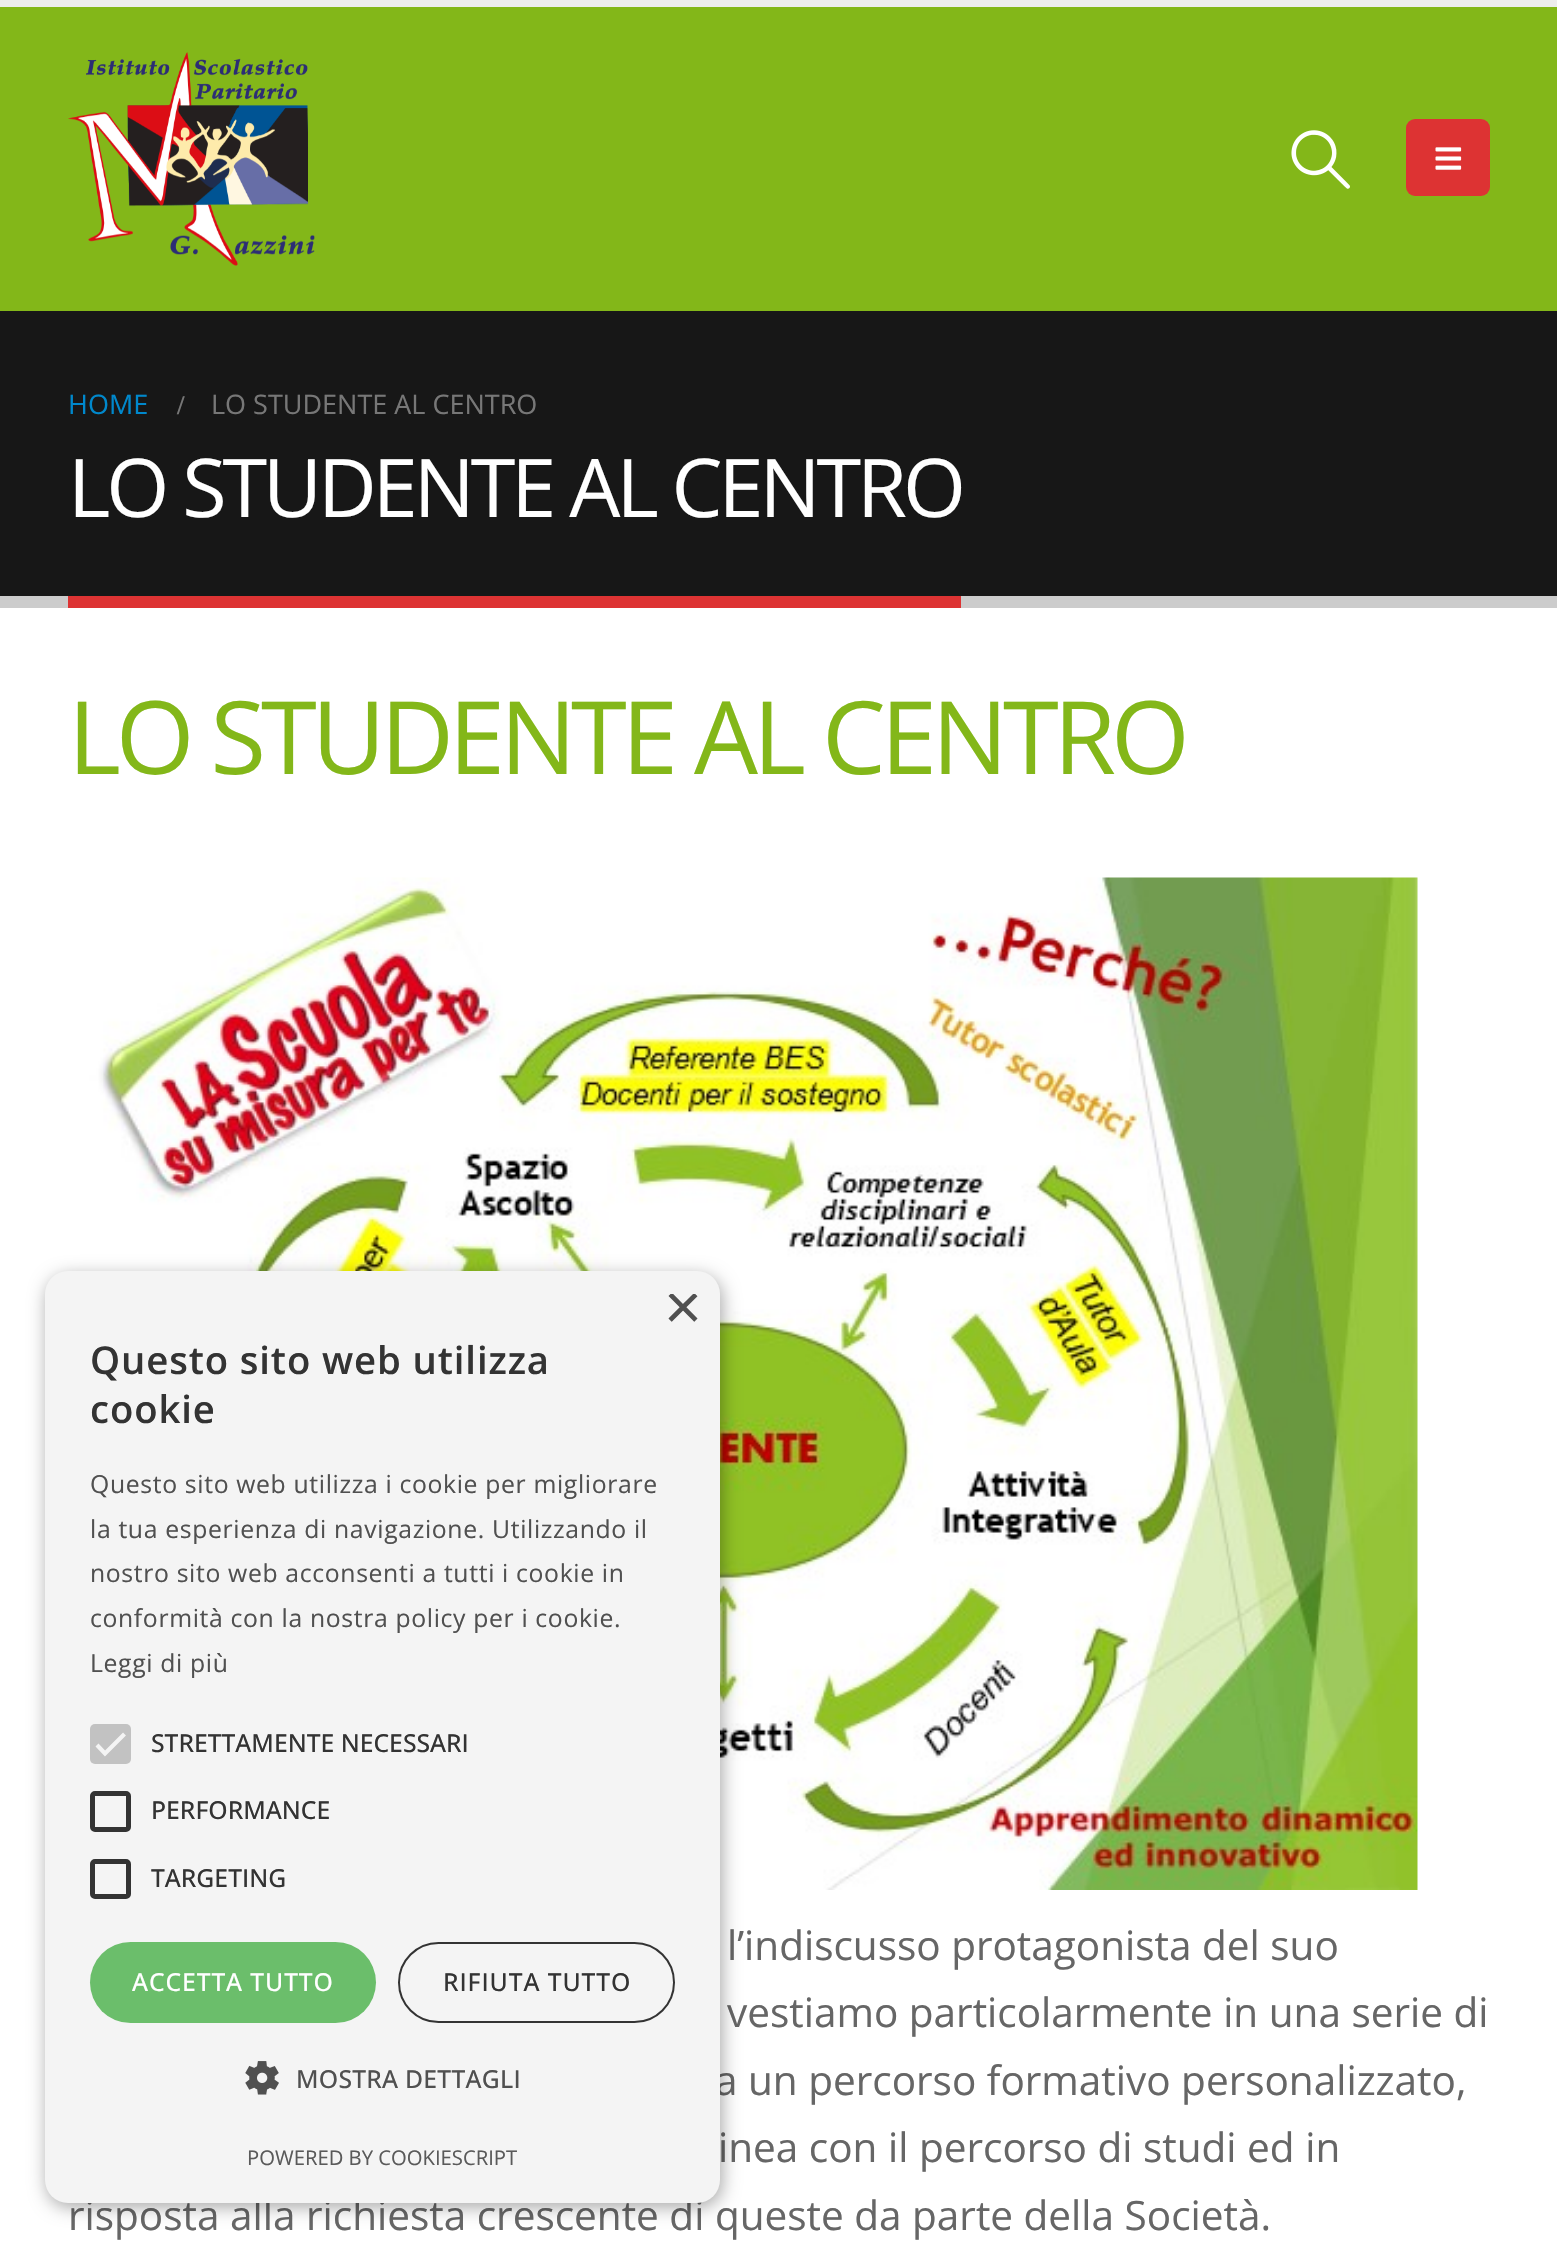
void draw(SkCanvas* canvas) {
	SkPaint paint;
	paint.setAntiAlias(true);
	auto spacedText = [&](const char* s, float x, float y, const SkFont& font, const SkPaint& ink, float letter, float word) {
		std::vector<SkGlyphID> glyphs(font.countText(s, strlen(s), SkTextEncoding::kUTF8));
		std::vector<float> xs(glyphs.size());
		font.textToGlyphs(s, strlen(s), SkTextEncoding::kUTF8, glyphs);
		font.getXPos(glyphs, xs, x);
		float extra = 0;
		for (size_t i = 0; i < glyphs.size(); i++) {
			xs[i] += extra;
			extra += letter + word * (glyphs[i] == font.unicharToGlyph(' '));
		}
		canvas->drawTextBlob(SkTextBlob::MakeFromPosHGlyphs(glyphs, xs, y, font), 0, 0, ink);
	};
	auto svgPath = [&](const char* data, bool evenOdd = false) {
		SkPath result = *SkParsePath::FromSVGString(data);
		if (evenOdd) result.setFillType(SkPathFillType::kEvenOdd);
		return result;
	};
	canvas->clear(0xffffffff);
	paint.setColor(0xffededed);
	canvas->drawRect(SkRect::MakeXYWH(0, 0, 1557, 7), paint);
	paint.setColor(0xff83b719);
	canvas->drawRect(SkRect::MakeXYWH(0, 7, 1557, 304), paint);
	canvas->drawImageRect(SkImages::DeferredFromEncodedData(SkData::MakeFromFileName("img1.png")), SkRect::MakeXYWH(68, 52, 247, 214), SkSamplingOptions());
	canvas->drawImageRect(SkImages::DeferredFromEncodedData(SkData::MakeFromFileName("img2.png")), SkRect::MakeXYWH(1291, 130, 59, 59), SkSamplingOptions());
	paint.setColor(0xffdd3333);
	canvas->drawRoundRect(SkRect::MakeXYWH(1406, 119, 84, 77), 9, 9, paint);
	canvas->drawImageRect(SkImages::DeferredFromEncodedData(SkData::MakeFromFileName("img3.png")), SkRect::MakeXYWH(1435, 147, 27, 23), SkSamplingOptions());
	paint.setColor(0xff171717);
	canvas->drawRect(SkRect::MakeXYWH(0, 311, 1557, 285), paint);
	paint.setColor(0xffcccccc);
	canvas->drawRect(SkRect::MakeXYWH(0, 596, 1557, 12), paint);
	SkFont f1(fontMgr->matchFamilyStyle("Open Sans", SkFontStyle::Normal()), 27);
	f1.setSubpixel(true);
	paint.setColor(0xff0088cc);
	canvas->drawString("HOME", 68, 414, f1, paint);
	SkFont f2(fontMgr->matchFamilyStyle("Liberation Serif", SkFontStyle::Bold()), 27);
	f2.setSubpixel(true);
	paint.setColor(0xff777777);
	canvas->drawString("/", 177, 414, f2, paint);
	canvas->drawString("LO STUDENTE AL CENTRO", 211, 414, f1, paint);
	SkFont f3(fontMgr->matchFamilyStyle("Open Sans", SkFontStyle::Normal()), 81);
	f3.setSubpixel(true);
	paint.setColor(0xffffffff);
	spacedText("LO STUDENTE AL CENTRO", 68, 517, f3, paint, -4.05, 0);
	paint.setColor(0xffdd3333);
	canvas->drawRect(SkRect::MakeXYWH(68, 596, 893, 12), paint);
	SkFont f4(fontMgr->matchFamilyStyle("Open Sans", SkFontStyle::Normal()), 101.25);
	f4.setSubpixel(true);
	paint.setColor(0xff83b719);
	spacedText("LO STUDENTE AL CENTRO", 68, 774, f4, paint, -5.1, 0);
	canvas->drawImageRect(SkImages::DeferredFromEncodedData(SkData::MakeFromFileName("img4.png")), SkRect::MakeXYWH(67, 877, 1351, 1013), SkSamplingOptions());
	SkFont f5(fontMgr->matchFamilyStyle("Open Sans", SkFontStyle::Normal()), 40.5);
	f5.setSubpixel(true);
	paint.setColor(0xff666666);
	canvas->drawString("l’indiscusso protagonista del suo", 727, 1960, f5, paint);
	canvas->drawString("vestiamo particolarmente in una serie di", 727, 2027, f5, paint);
	canvas->drawString("a un percorso formativo personalizzato,", 715, 2095, f5, paint);
	canvas->drawString("inea con il percorso di studi ed in", 718, 2162, f5, paint);
	canvas->drawString("risposta alla richiesta crescente di queste da parte della Società.", 68, 2230, f5, paint);
	paint.setColor(0x59000000);
	paint.setMaskFilter(SkMaskFilter::MakeBlur(kNormal_SkBlurStyle, 9));
	canvas->drawRoundRect(SkRect::MakeXYWH(47, 1276, 675, 931), 23, 23, paint);
	paint.setMaskFilter(nullptr);
	paint.setColor(0xfff4f4f4);
	canvas->drawRoundRect(SkRect::MakeXYWH(45, 1271, 675, 932), 23, 23, paint);
	canvas->save();
	canvas->clipRect(SkRect::MakeXYWH(664, 1294, 34, 34));
	SkFont f6(fontMgr->matchFamilyStyle("Liberation Sans", SkFontStyle::Normal()), 65);
	f6.setSubpixel(true);
	paint.setColor(0xff505050);
	canvas->drawString("×", 664, 1329, f6, paint);
	canvas->restore();
	SkFont f7(fontMgr->matchFamilyStyle("Open Sans", SkFontStyle(600, SkFontStyle::kNormal_Width, SkFontStyle::kUpright_Slant)), 38.25);
	f7.setSubpixel(true);
	paint.setColor(0xff333333);
	spacedText("Questo sito web utilizza", 90, 1374, f7, paint, 0.9, 0);
	spacedText("cookie", 90, 1423, f7, paint, 0.9, 0);
	SkFont f8(fontMgr->matchFamilyStyle("Open Sans", SkFontStyle::Normal()), 24.75);
	f8.setSubpixel(true);
	paint.setColor(0xff505050);
	spacedText("Questo sito web utilizza i cookie per migliorare", 90, 1493, f8, paint, 0.65, 0);
	spacedText("la tua esperienza di navigazione. Utilizzando il", 90, 1538, f8, paint, 0.65, 0);
	spacedText("nostro sito web acconsenti a tutti i cookie in", 90, 1582, f8, paint, 0.65, 0);
	spacedText("conformità con la nostra policy per i cookie.", 90, 1627, f8, paint, 0.65, 0);
	spacedText("Leggi di più", 90, 1672, f8, paint, 0.65, 0);
	paint.setColor(0xffc2c2c2);
	canvas->drawRoundRect(SkRect::MakeXYWH(90, 1724, 41, 40), 5, 5, paint);
	paint.setStroke(true);
	paint.setStrokeWidth(4.1);
	paint.setColor(0xfff4f4f4);
	canvas->drawPath(svgPath("M97 1745L105 1753.5L124.5 1734"), paint);
	SkFont f9(fontMgr->matchFamilyStyle("Open Sans", SkFontStyle(500, SkFontStyle::kNormal_Width, SkFontStyle::kUpright_Slant)), 24.75);
	f9.setSubpixel(true);
	paint.setStroke(false);
	paint.setColor(0xff333333);
	canvas->drawString("STRETTAMENTE NECESSARI", 151, 1752, f9, paint);
	paint.setStroke(true);
	paint.setStrokeWidth(5);
	canvas->drawRoundRect(SkRect::MakeXYWH(92.5, 1793.5, 36, 36), 2.5, 2.5, paint);
	paint.setStroke(false);
	canvas->drawString("PERFORMANCE", 151, 1819, f9, paint);
	paint.setStroke(true);
	canvas->drawRoundRect(SkRect::MakeXYWH(92.5, 1861.5, 36, 35), 2.5, 2.5, paint);
	paint.setStroke(false);
	canvas->drawString("TARGETING", 151, 1887, f9, paint);
	paint.setColor(0xff6bbe6b);
	canvas->drawRoundRect(SkRect::MakeXYWH(90, 1942, 286, 81), 40.5, 40.5, paint);
	paint.setColor(0xffffffff);
	spacedText("ACCETTA TUTTO", 132, 1991, f9, paint, 0.9, 0);
	paint.setStroke(true);
	paint.setStrokeWidth(2);
	paint.setColor(0xff333333);
	canvas->drawRoundRect(SkRect::MakeXYWH(399, 1943, 275, 79), 39.5, 39.5, paint);
	paint.setStroke(false);
	spacedText("RIFIUTA TUTTO", 443, 1991, f9, paint, 0.9, 0);
	canvas->drawImageRect(SkImages::DeferredFromEncodedData(SkData::MakeFromFileName("img5.png")), SkRect::MakeXYWH(245, 2061, 34, 34), SkSamplingOptions());
	paint.setColor(0xff505050);
	spacedText("MOSTRA DETTAGLI", 296, 2088, f9, paint, 0.25, 0);
	SkFont f10(fontMgr->matchFamilyStyle("Open Sans", SkFontStyle::Normal()), 20.25);
	f10.setSubpixel(true);
	paint.setColor(0xff5a5a5a);
	canvas->drawString("POWERED BY COOKIESCRIPT", 247, 2165, f10, paint);
}
